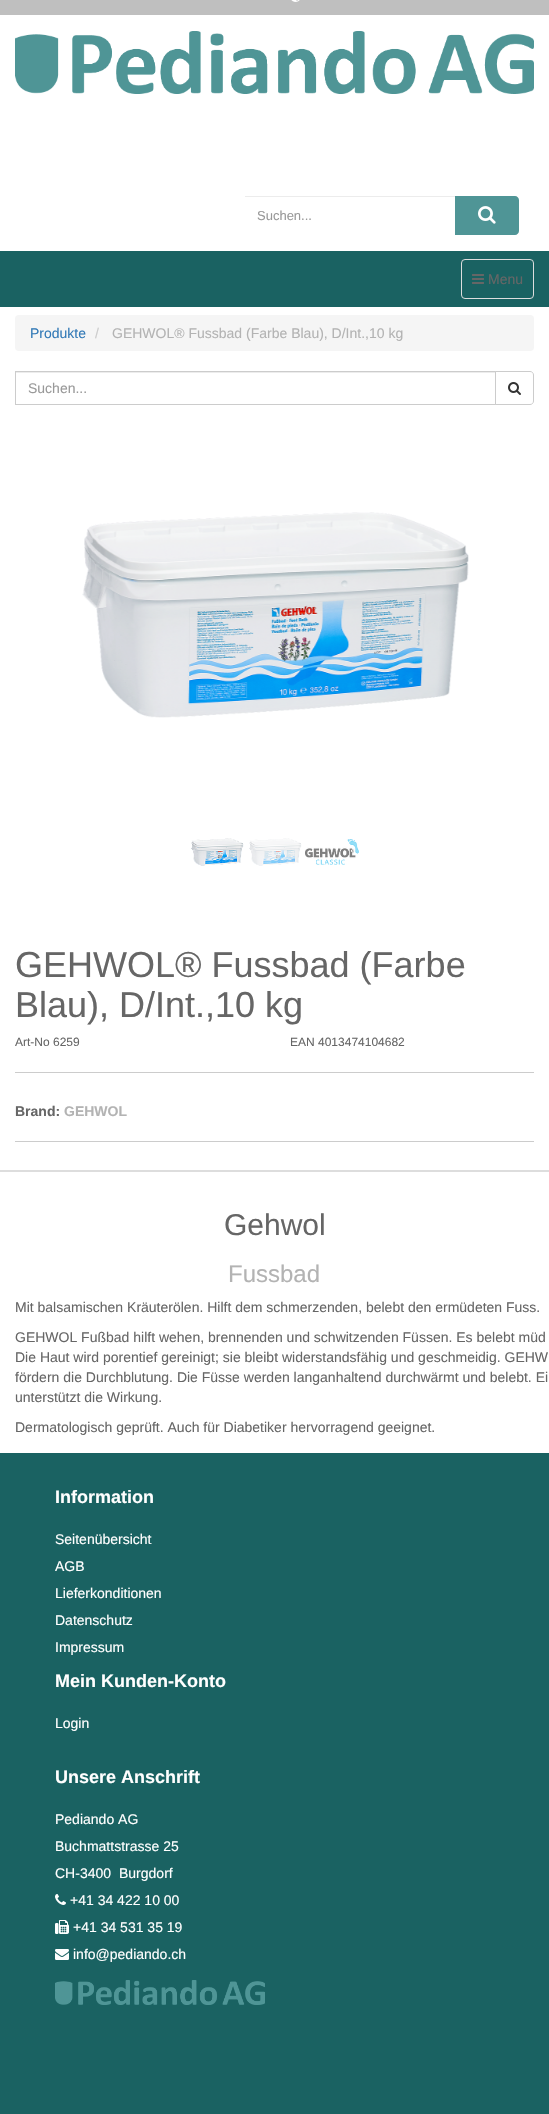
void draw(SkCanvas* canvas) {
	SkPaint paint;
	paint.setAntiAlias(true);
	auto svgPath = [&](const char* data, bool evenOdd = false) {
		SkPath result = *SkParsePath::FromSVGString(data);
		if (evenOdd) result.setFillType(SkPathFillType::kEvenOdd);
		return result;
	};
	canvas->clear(0xffffffff);
	paint.setColor(0xffbfbfbf);
	canvas->drawRect(SkRect::MakeXYWH(0, 0, 549, 15), paint);
	canvas->drawImageRect(SkImages::DeferredFromEncodedData(SkData::MakeFromFileName("img1.png")), SkRect::MakeXYWH(291, 0, 9, 2), SkSamplingOptions());
	canvas->drawImageRect(SkImages::DeferredFromEncodedData(SkData::MakeFromFileName("img2.png")), SkRect::MakeXYWH(15, 31, 519, 63), SkSamplingOptions());
	paint.setColor(0xffececec);
	canvas->drawRect(SkRect::MakeXYWH(245, 196, 211, 1), paint);
	SkFont f1(fontMgr->matchFamilyStyle("Liberation Sans", SkFontStyle::Normal()), 13);
	f1.setSubpixel(true);
	paint.setColor(0xff999999);
	canvas->drawString("Suchen...", 257, 220, f1, paint);
	paint.setColor(0xff4f9596);
	canvas->drawPath(svgPath("M455 196H515C517 196 519 198 519 200V231C519 233 517 235 515 235H455Z"), paint);
	canvas->drawImageRect(SkImages::DeferredFromEncodedData(SkData::MakeFromFileName("img3.png")), SkRect::MakeXYWH(478, 206, 18, 18), SkSamplingOptions());
	paint.setColor(0xff1a6262);
	canvas->drawRect(SkRect::MakeXYWH(0, 251, 549, 56), paint);
	paint.setStroke(true);
	paint.setStrokeWidth(1);
	paint.setColor(0xffdddddd);
	canvas->drawRoundRect(SkRect::MakeXYWH(461.5, 259.5, 72, 39), 3.5, 3.5, paint);
	canvas->drawImageRect(SkImages::DeferredFromEncodedData(SkData::MakeFromFileName("img4.png")), SkRect::MakeXYWH(472, 274, 12, 10), SkSamplingOptions());
	SkFont f2(fontMgr->matchFamilyStyle("Liberation Sans", SkFontStyle::Normal()), 14);
	f2.setSubpixel(true);
	paint.setStroke(false);
	paint.setColor(0xff666666);
	canvas->drawString("Menu", 488, 284, f2, paint);
	paint.setColor(0xfff5f5f5);
	canvas->drawRoundRect(SkRect::MakeXYWH(15, 315, 519, 36), 4, 4, paint);
	paint.setColor(0xff337ab7);
	canvas->drawString("Produkte", 30, 338, f2, paint);
	paint.setColor(0xffcccccc);
	canvas->drawString("/", 95, 338, f2, paint);
	paint.setColor(0xffb3b3b3);
	canvas->drawString("GEHWOL® Fussbad (Farbe Blau), D/Int.,10 kg", 112, 338, f2, paint);
	paint.setColor(0xffececec);
	canvas->drawRect(SkRect::MakeXYWH(16, 372, 479, 1), paint);
	paint.setStroke(true);
	paint.setColor(0xffcccccc);
	canvas->drawRect(SkRect::MakeXYWH(15.5, 371.5, 480, 33), paint);
	paint.setStroke(false);
	paint.setColor(0xff999999);
	canvas->drawString("Suchen...", 28, 393, f2, paint);
	paint.setColor(0xffffffff);
	canvas->drawPath(svgPath("M495.5 371.5H530C532 371.5 533.5 373 533.5 375V401C533.5 403 532 404.5 530 404.5H495.5Z"), paint);
	paint.setStroke(true);
	paint.setColor(0xffcccccc);
	canvas->drawPath(svgPath("M495.5 371.5H530C532 371.5 533.5 373 533.5 375V401C533.5 403 532 404.5 530 404.5H495.5Z"), paint);
	canvas->drawImageRect(SkImages::DeferredFromEncodedData(SkData::MakeFromFileName("img5.png")), SkRect::MakeXYWH(508, 382, 13, 13), SkSamplingOptions());
	canvas->drawImageRect(SkImages::DeferredFromEncodedData(SkData::MakeFromFileName("img6.png")), SkRect::MakeXYWH(82, 512, 387, 206), SkSamplingOptions());
	canvas->drawImageRect(SkImages::DeferredFromEncodedData(SkData::MakeFromFileName("img7.png")), SkRect::MakeXYWH(191, 838, 53, 28), SkSamplingOptions());
	canvas->drawImageRect(SkImages::DeferredFromEncodedData(SkData::MakeFromFileName("img8.png")), SkRect::MakeXYWH(249, 838, 53, 28), SkSamplingOptions());
	canvas->drawImageRect(SkImages::DeferredFromEncodedData(SkData::MakeFromFileName("img9.png")), SkRect::MakeXYWH(305, 839, 54, 26), SkSamplingOptions());
	SkFont f3(fontMgr->matchFamilyStyle("Liberation Sans", SkFontStyle::Normal()), 36);
	f3.setSubpixel(true);
	paint.setStroke(false);
	paint.setColor(0xff666666);
	canvas->drawString("GEHWOL® Fussbad (Farbe", 15, 977, f3, paint);
	canvas->drawString("Blau), D/Int.,10 kg", 15, 1017, f3, paint);
	SkFont f4(fontMgr->matchFamilyStyle("Liberation Sans", SkFontStyle::Normal()), 12);
	f4.setSubpixel(true);
	canvas->drawString("Art-No 6259", 15, 1046, f4, paint);
	canvas->drawString("EAN 4013474104682", 290, 1046, f4, paint);
	paint.setColor(0xffcccccc);
	canvas->drawRect(SkRect::MakeXYWH(15, 1072, 519, 1), paint);
	SkFont f5(fontMgr->matchFamilyStyle("Liberation Sans", SkFontStyle::Bold()), 14);
	f5.setSubpixel(true);
	paint.setColor(0xff666666);
	canvas->drawString("Brand:", 15, 1116, f5, paint);
	paint.setColor(0xffb3b3b3);
	canvas->drawString("GEHWOL", 64, 1116, f5, paint);
	paint.setColor(0xffcccccc);
	canvas->drawRect(SkRect::MakeXYWH(15, 1141, 519, 1), paint);
	paint.setColor(0xffdddddd);
	canvas->drawRect(SkRect::MakeXYWH(0, 1170, 549, 2), paint);
	SkFont f6(fontMgr->matchFamilyStyle("Liberation Sans", SkFontStyle::Normal()), 30);
	f6.setSubpixel(true);
	paint.setColor(0xff666666);
	canvas->drawString("Gehwol", 224, 1235, f6, paint);
	SkFont f7(fontMgr->matchFamilyStyle("Liberation Sans", SkFontStyle::Normal()), 24);
	f7.setSubpixel(true);
	paint.setColor(0xffb3b3b3);
	canvas->drawString("Fussbad", 228, 1282, f7, paint);
	paint.setColor(0xff666666);
	canvas->drawString("Mit balsamischen Kräuterölen. Hilft dem schmerzenden, belebt den ermüdeten Fuss.", 15, 1312, f2, paint);
	canvas->drawString("GEHWOL Fußbad hilft wehen, brennenden und schwitzenden Füssen. Es belebt müd", 15, 1342, f2, paint);
	canvas->drawString("Die Haut wird porentief gereinigt; sie bleibt widerstandsfähig und geschmeidig. GEHW", 15, 1362, f2, paint);
	canvas->drawString("fördern die Durchblutung. Die Füsse werden langanhaltend durchwärmt und belebt. Ei", 15, 1382, f2, paint);
	canvas->drawString("unterstützt die Wirkung.", 15, 1402, f2, paint);
	canvas->drawString("Dermatologisch geprüft. Auch für Diabetiker hervorragend geeignet.", 15, 1432, f2, paint);
	paint.setColor(0xff1a6262);
	canvas->drawRect(SkRect::MakeXYWH(0, 1453, 549, 661), paint);
	SkFont f8(fontMgr->matchFamilyStyle("Liberation Sans", SkFontStyle::Bold()), 18);
	f8.setSubpixel(true);
	paint.setColor(0xffffffff);
	canvas->drawString("Information", 55, 1503, f8, paint);
	canvas->drawString("Seitenübersicht", 55, 1544, f2, paint);
	canvas->drawString("AGB", 55, 1571, f2, paint);
	canvas->drawString("Lieferkonditionen", 55, 1598, f2, paint);
	canvas->drawString("Datenschutz", 55, 1625, f2, paint);
	canvas->drawString("Impressum", 55, 1652, f2, paint);
	canvas->drawString("Mein Kunden-Konto", 55, 1687, f8, paint);
	canvas->drawString("Login", 55, 1728, f2, paint);
	canvas->drawString("Unsere Anschrift", 55, 1783, f8, paint);
	canvas->drawString("Pediando AG", 55, 1824, f2, paint);
	canvas->drawString("Buchmattstrasse 25", 55, 1851, f2, paint);
	canvas->drawString("CH-3400", 55, 1878, f2, paint);
	canvas->drawString("Burgdorf", 119, 1878, f2, paint);
	canvas->drawImageRect(SkImages::DeferredFromEncodedData(SkData::MakeFromFileName("img10.png")), SkRect::MakeXYWH(55, 1894, 11, 11), SkSamplingOptions());
	canvas->drawString("+41 34 422 10 00", 70, 1905, f2, paint);
	canvas->drawImageRect(SkImages::DeferredFromEncodedData(SkData::MakeFromFileName("img11.png")), SkRect::MakeXYWH(55, 1920, 14, 14), SkSamplingOptions());
	canvas->drawString("+41 34 531 35 19", 73, 1932, f2, paint);
	canvas->drawImageRect(SkImages::DeferredFromEncodedData(SkData::MakeFromFileName("img12.png")), SkRect::MakeXYWH(55, 1949, 14, 11), SkSamplingOptions());
	canvas->drawString("info@pediando.ch", 73, 1959, f2, paint);
	canvas->drawImageRect(SkImages::DeferredFromEncodedData(SkData::MakeFromFileName("img13.png")), SkRect::MakeXYWH(55, 1980, 210, 25), SkSamplingOptions());
}
